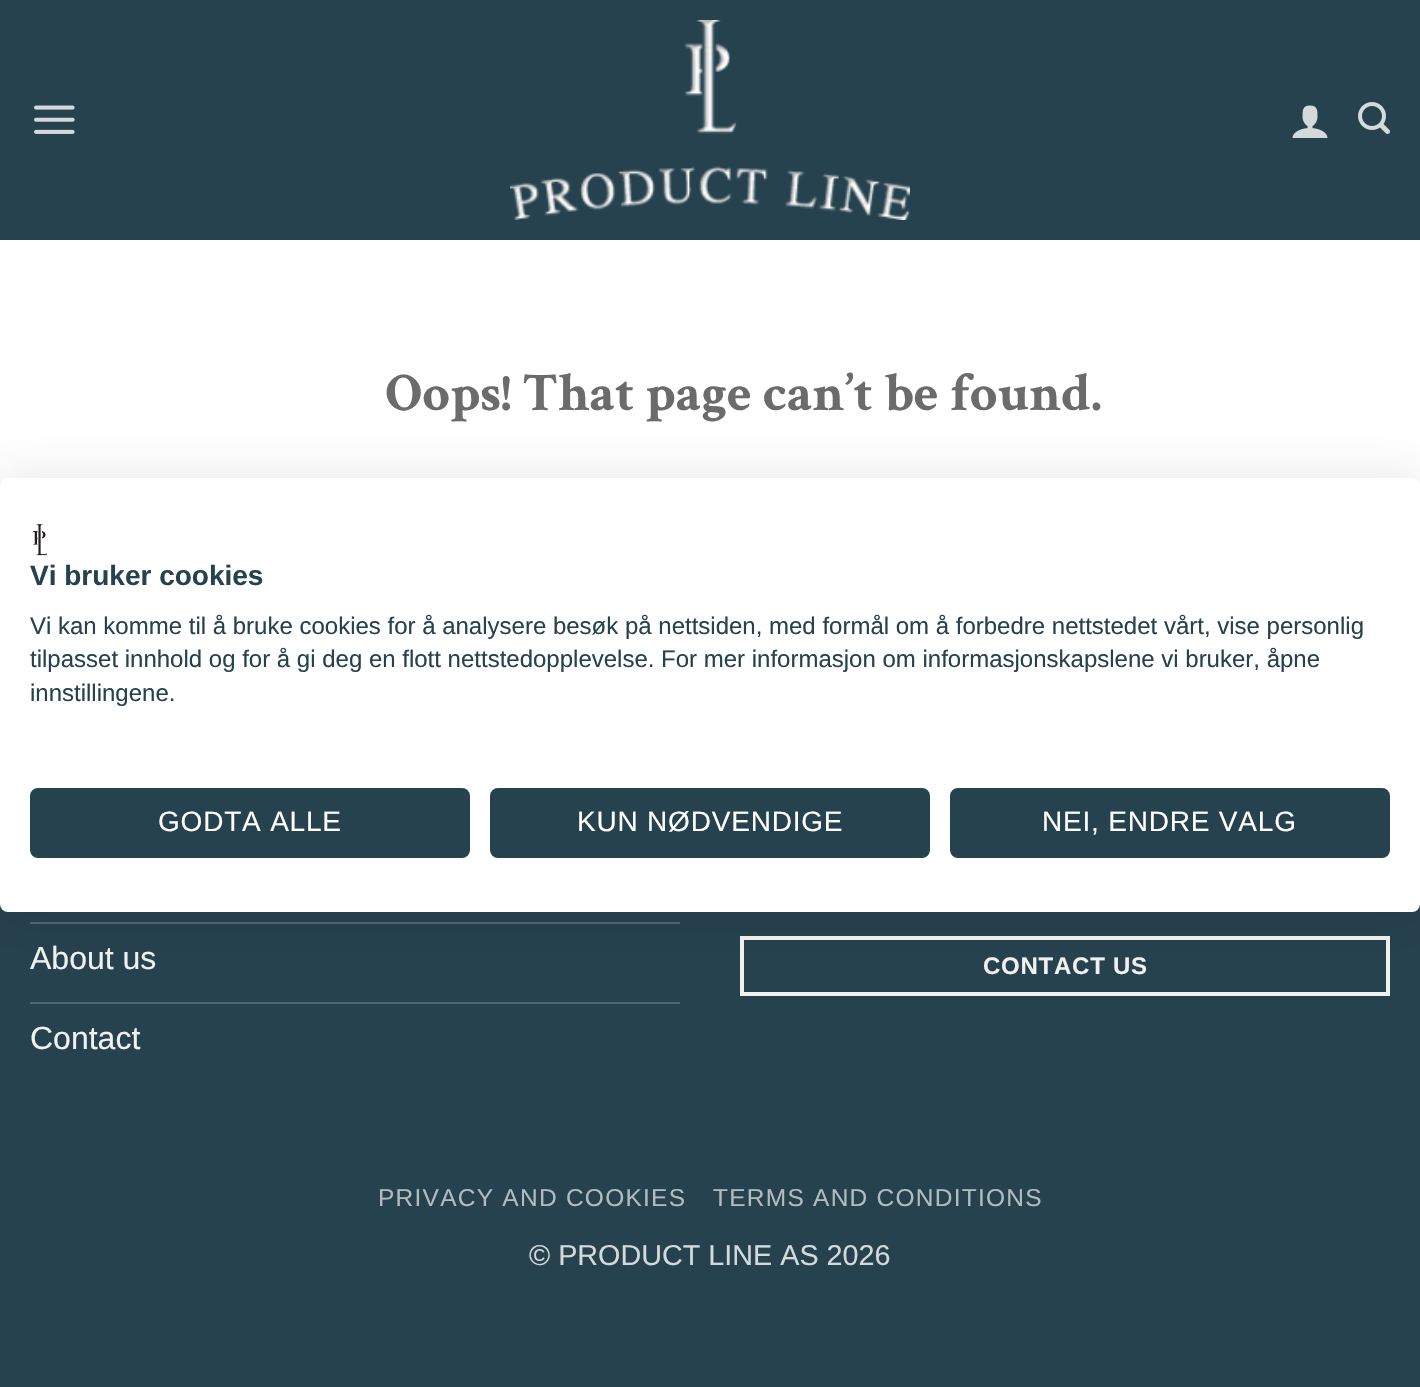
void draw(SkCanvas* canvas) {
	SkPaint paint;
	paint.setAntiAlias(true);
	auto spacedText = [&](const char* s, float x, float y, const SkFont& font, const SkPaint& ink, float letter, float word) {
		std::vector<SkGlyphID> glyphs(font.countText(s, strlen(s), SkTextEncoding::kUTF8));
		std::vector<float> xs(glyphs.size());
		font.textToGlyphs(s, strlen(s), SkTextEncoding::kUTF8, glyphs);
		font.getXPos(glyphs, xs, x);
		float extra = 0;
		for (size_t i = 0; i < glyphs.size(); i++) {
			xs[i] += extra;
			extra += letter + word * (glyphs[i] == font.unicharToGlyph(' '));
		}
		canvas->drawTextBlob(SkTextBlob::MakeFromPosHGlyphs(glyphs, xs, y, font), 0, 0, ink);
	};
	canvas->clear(0xff26424e);
	paint.setColor(0xffffffff);
	canvas->drawRect(SkRect::MakeXYWH(0, 240, 1420, 246), paint);
	canvas->drawImageRect(SkImages::DeferredFromEncodedData(SkData::MakeFromFileName("img1.png")), SkRect::MakeXYWH(34, 105, 41, 29), SkSamplingOptions());
	canvas->drawImageRect(SkImages::DeferredFromEncodedData(SkData::MakeFromFileName("img2.png")), SkRect::MakeXYWH(510, 20, 400, 200), SkSamplingOptions());
	canvas->drawImageRect(SkImages::DeferredFromEncodedData(SkData::MakeFromFileName("img3.png")), SkRect::MakeXYWH(1292, 105, 36, 33), SkSamplingOptions());
	canvas->drawImageRect(SkImages::DeferredFromEncodedData(SkData::MakeFromFileName("img4.png")), SkRect::MakeXYWH(1358, 102, 32, 32), SkSamplingOptions());
	SkFont f1(fontMgr->matchFamilyStyle("Crimson Text", SkFontStyle::Bold()), 54.4);
	f1.setSubpixel(true);
	paint.setColor(0xff6b6b6b);
	canvas->drawString("Oops! That page can’t be found.", 385, 410, f1, paint);
	paint.setColor(0xff516871);
	canvas->drawRect(SkRect::MakeXYWH(30, 922, 650, 2), paint);
	canvas->drawRect(SkRect::MakeXYWH(30, 1002, 650, 2), paint);
	SkFont f2(fontMgr->matchFamilyStyle("Liberation Sans", SkFontStyle::Normal()), 32);
	f2.setSubpixel(true);
	paint.setColor(0xfff1f1f1);
	canvas->drawString("About us", 30, 969, f2, paint);
	canvas->drawString("Contact", 30, 1049, f2, paint);
	paint.setStroke(true);
	paint.setStrokeWidth(4);
	canvas->drawRect(SkRect::MakeXYWH(742, 938, 646, 56), paint);
	SkFont f3(fontMgr->matchFamilyStyle("Liberation Sans", SkFontStyle::Bold()), 24);
	f3.setSubpixel(true);
	paint.setStroke(false);
	spacedText("CONTACT US", 983, 974, f3, paint, 0.75, 0);
	SkFont f4(fontMgr->matchFamilyStyle("Liberation Sans", SkFontStyle::Normal()), 24.5);
	f4.setSubpixel(true);
	paint.setColor(0xffb1bbc0);
	spacedText("PRIVACY AND COOKIES", 378, 1206, f4, paint, 1.25, 0);
	spacedText("TERMS AND CONDITIONS", 713, 1206, f4, paint, 1.25, 0);
	SkFont f5(fontMgr->matchFamilyStyle("Liberation Sans", SkFontStyle::Normal()), 28.75);
	f5.setSubpixel(true);
	paint.setColor(0xffd4d9dc);
	canvas->drawString("© PRODUCT LINE AS 2026", 529, 1265, f5, paint);
	paint.setColor(0x1a000000);
	paint.setMaskFilter(SkMaskFilter::MakeBlur(kNormal_SkBlurStyle, 24));
	canvas->drawRoundRect(SkRect::MakeXYWH(0, 478, 1420, 434), 8, 8, paint);
	paint.setMaskFilter(nullptr);
	paint.setColor(0xffffffff);
	canvas->drawRoundRect(SkRect::MakeXYWH(0, 478, 1420, 434), 8, 8, paint);
	canvas->drawImageRect(SkImages::DeferredFromEncodedData(SkData::MakeFromFileName("img5.png")), SkRect::MakeXYWH(33, 524, 15, 32), SkSamplingOptions());
	SkFont f6(fontMgr->matchFamilyStyle("Liberation Sans", SkFontStyle::Bold()), 28);
	f6.setSubpixel(true);
	paint.setColor(0xff26424e);
	canvas->drawString("Vi bruker cookies", 30, 585, f6, paint);
	SkFont f7(fontMgr->matchFamilyStyle("Liberation Sans", SkFontStyle::Normal()), 24);
	f7.setSubpixel(true);
	canvas->drawString("Vi kan komme til å bruke cookies for å analysere besøk på nettsiden, med formål om å forbedre nettstedet vårt, vise personlig", 30, 634, f7, paint);
	canvas->drawString("tilpasset innhold og for å gi deg en flott nettstedopplevelse. For mer informasjon om informasjonskapslene vi bruker, åpne", 30, 667, f7, paint);
	canvas->drawString("innstillingene.", 30, 701, f7, paint);
	canvas->drawRoundRect(SkRect::MakeXYWH(31, 789, 438, 68), 7, 7, paint);
	paint.setStroke(true);
	paint.setStrokeWidth(2);
	canvas->drawRoundRect(SkRect::MakeXYWH(31, 789, 438, 68), 7, 7, paint);
	SkFont f8(fontMgr->matchFamilyStyle("Liberation Sans", SkFontStyle::Normal()), 28);
	f8.setSubpixel(true);
	paint.setStroke(false);
	paint.setColor(0xffffffff);
	spacedText("GODTA ALLE", 158, 831, f8, paint, 0.8, 0);
	paint.setColor(0xff26424e);
	canvas->drawRoundRect(SkRect::MakeXYWH(491, 789, 438, 68), 7, 7, paint);
	paint.setStroke(true);
	canvas->drawRoundRect(SkRect::MakeXYWH(491, 789, 438, 68), 7, 7, paint);
	paint.setStroke(false);
	paint.setColor(0xffffffff);
	spacedText("KUN NØDVENDIGE", 577, 831, f8, paint, 0.8, 0);
	paint.setColor(0xff26424e);
	canvas->drawRoundRect(SkRect::MakeXYWH(951, 789, 438, 68), 7, 7, paint);
	paint.setStroke(true);
	canvas->drawRoundRect(SkRect::MakeXYWH(951, 789, 438, 68), 7, 7, paint);
	paint.setStroke(false);
	paint.setColor(0xffffffff);
	spacedText("NEI, ENDRE VALG", 1042, 831, f8, paint, 0.8, 0);
}
